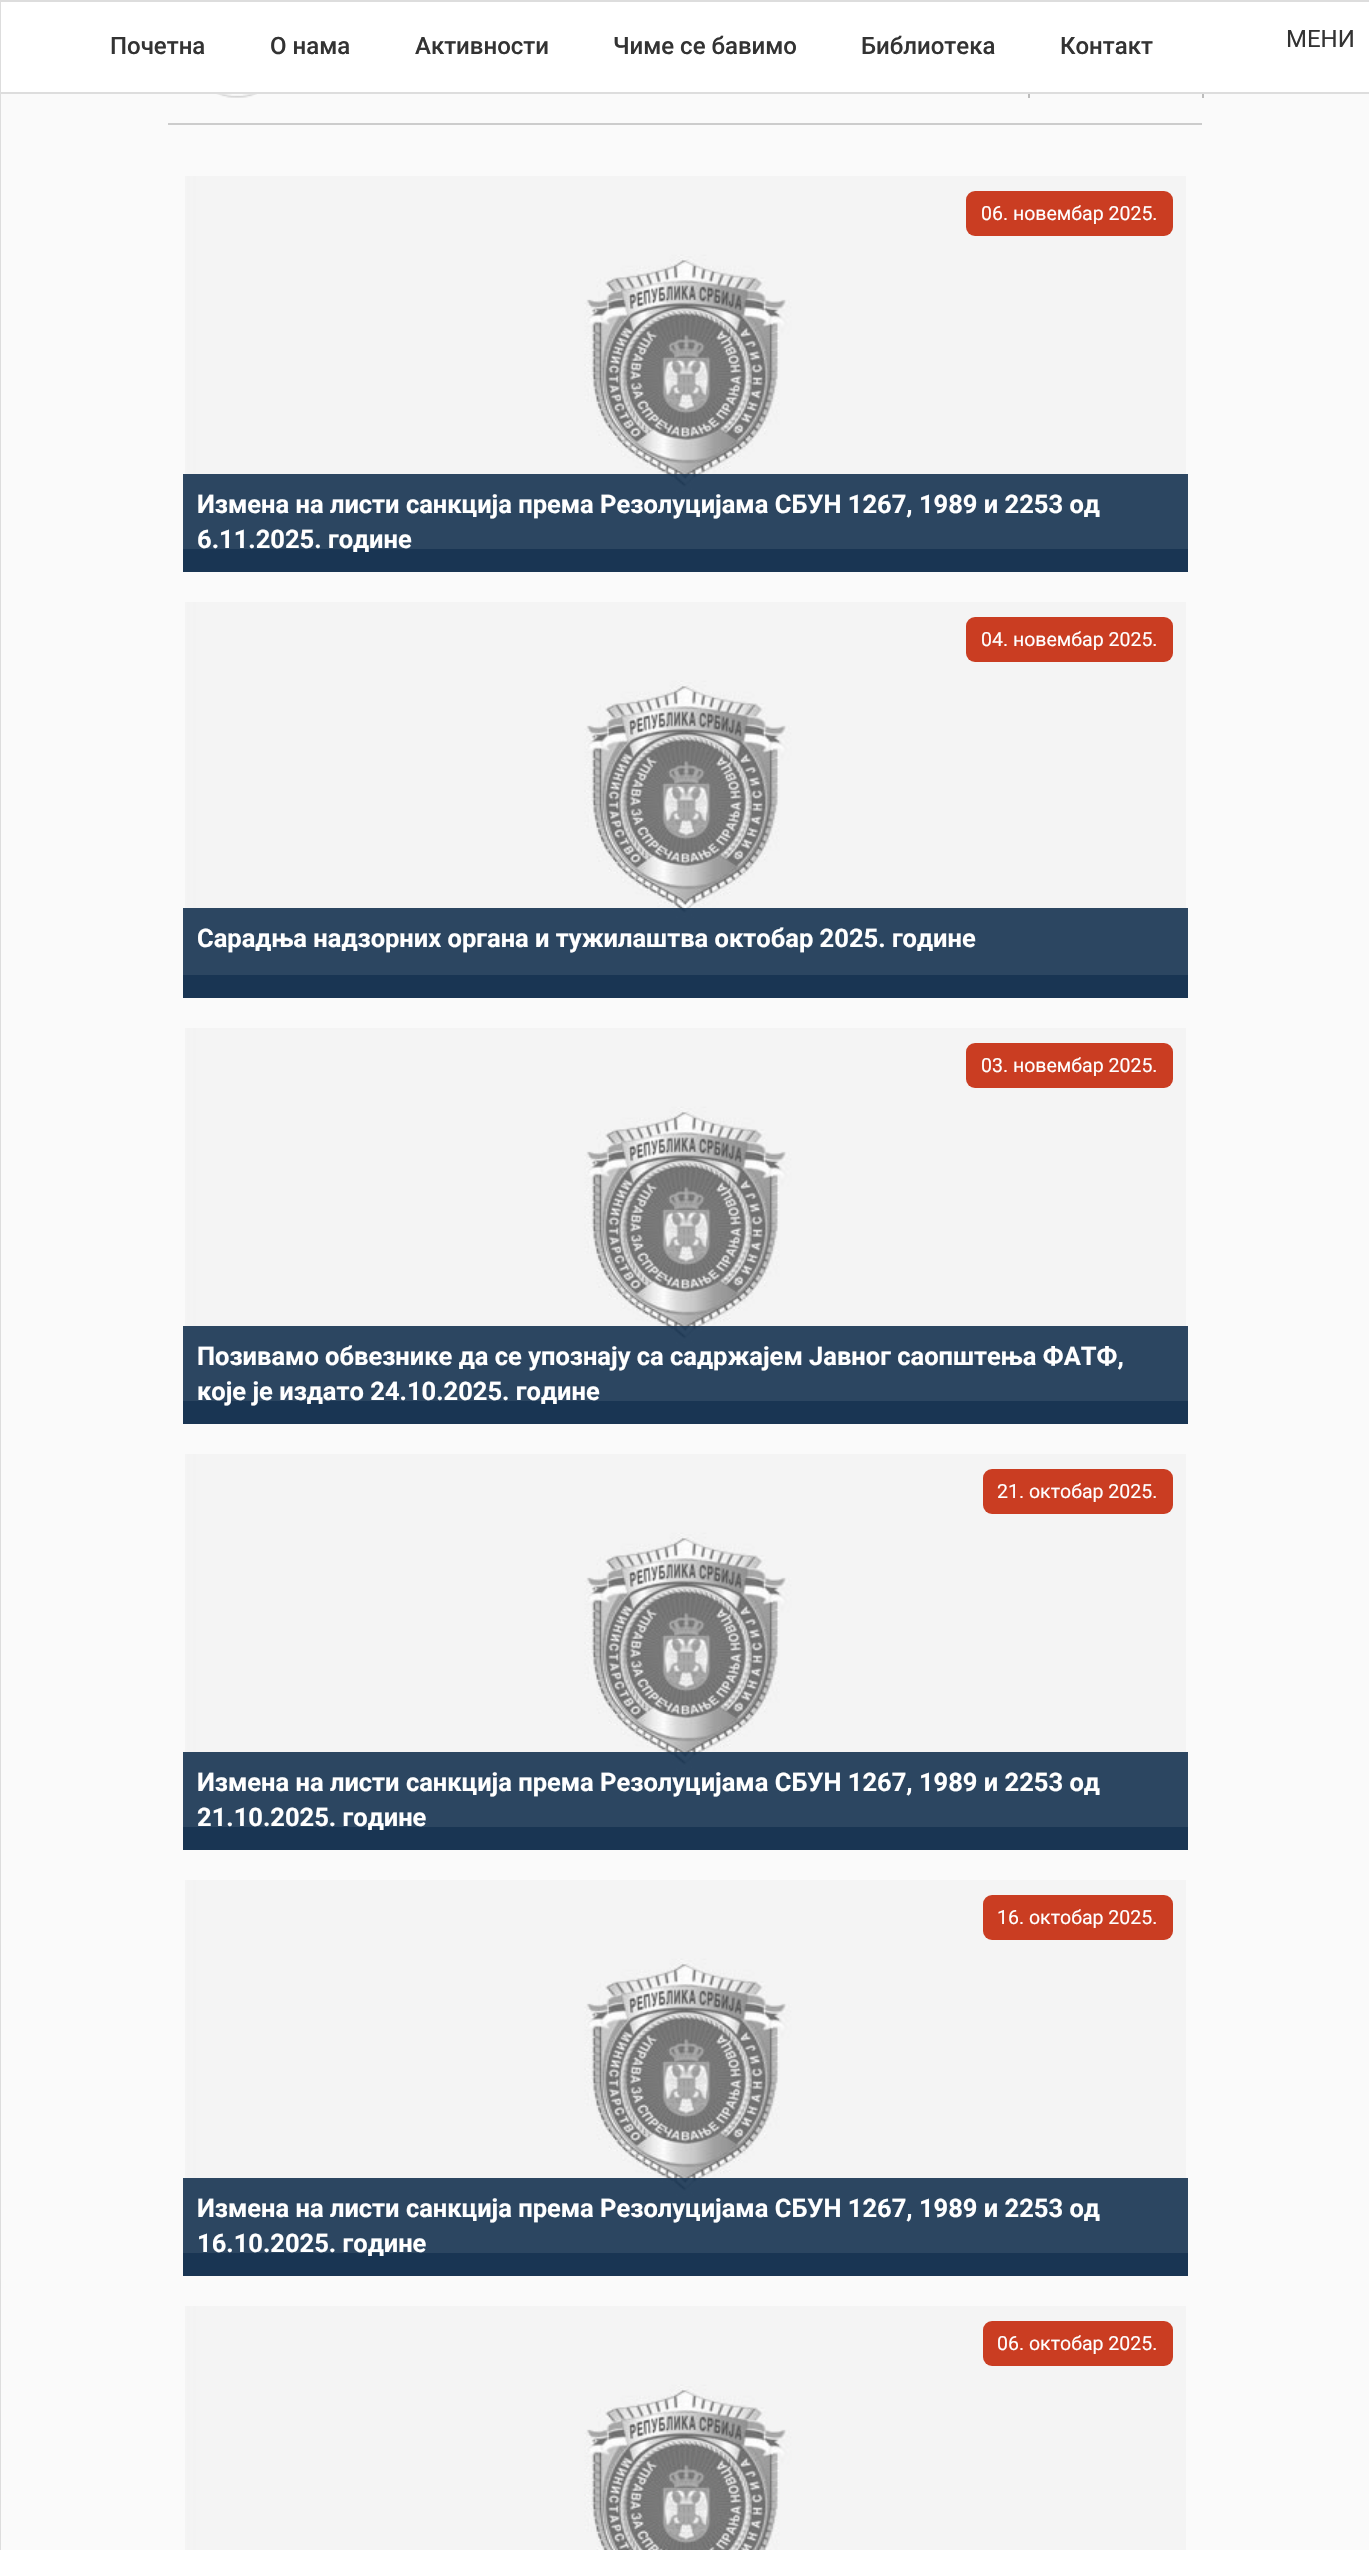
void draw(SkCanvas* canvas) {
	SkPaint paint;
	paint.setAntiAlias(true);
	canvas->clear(0xfffafafa);
	paint.setColor(0xffdddddd);
	canvas->drawRect(SkRect::MakeXYWH(0, 0, 1369, 2), paint);
	canvas->drawRect(SkRect::MakeXYWH(0, 92, 1369, 2), paint);
	canvas->drawRect(SkRect::MakeXYWH(0, 0, 1, 2550), paint);
	paint.setColor(0xffffffff);
	canvas->drawRect(SkRect::MakeXYWH(1, 2, 1368, 90), paint);
	SkFont f1(fontMgr->matchFamilyStyle("Roboto", SkFontStyle(500, SkFontStyle::kNormal_Width, SkFontStyle::kUpright_Slant)), 24);
	f1.setSubpixel(true);
	paint.setColor(0xff333333);
	canvas->drawString("Почетна", 110, 54, f1, paint);
	canvas->drawString("О нама", 270, 54, f1, paint);
	canvas->drawString("Активности", 415, 54, f1, paint);
	canvas->drawString("Чиме се бавимо", 613, 54, f1, paint);
	canvas->drawString("Библиотека", 861, 54, f1, paint);
	canvas->drawString("Контакт", 1060, 54, f1, paint);
	SkFont f2(fontMgr->matchFamilyStyle("Roboto", SkFontStyle::Normal()), 24);
	f2.setSubpixel(true);
	canvas->drawString("МЕНИ", 1286, 47, f2, paint);
	paint.setColor(0xffbcbcbc);
	canvas->drawRect(SkRect::MakeXYWH(1202, 94, 2, 4), paint);
	canvas->drawRect(SkRect::MakeXYWH(1028, 94, 2, 4), paint);
	canvas->drawImageRect(SkImages::DeferredFromEncodedData(SkData::MakeFromFileName("img1.png")), SkRect::MakeXYWH(216, 94, 41, 4), SkSamplingOptions());
	paint.setColor(0xffcccccc);
	canvas->drawRect(SkRect::MakeXYWH(168, 123, 1034, 2), paint);
	canvas->drawImageRect(SkImages::DeferredFromEncodedData(SkData::MakeFromFileName("img2.png")), SkRect::MakeXYWH(185, 176, 1001, 395), SkSamplingOptions());
	paint.setColor(0xffca3d22);
	canvas->drawRoundRect(SkRect::MakeXYWH(966, 191, 207, 45), 9, 9, paint);
	SkFont f3(fontMgr->matchFamilyStyle("Roboto", SkFontStyle::Normal()), 19.5);
	f3.setSubpixel(true);
	paint.setColor(0xffffffff);
	canvas->drawString("06.", 981, 220, f3, paint);
	canvas->drawString("новембар 2025.", 1013, 220, f3, paint);
	paint.setColor(0xe6163351);
	canvas->drawRect(SkRect::MakeXYWH(183, 549, 1005, 23), paint);
	canvas->drawRect(SkRect::MakeXYWH(183, 474, 1005, 98), paint);
	SkFont f4(fontMgr->matchFamilyStyle("Roboto", SkFontStyle::Bold()), 25.5);
	f4.setSubpixel(true);
	paint.setColor(0xffffffff);
	canvas->drawString("Измена на листи санкција према Резолуцијама СБУН 1267, 1989 и 2253 од", 197, 513, f4, paint);
	canvas->drawString("6.11.2025. године", 197, 548, f4, paint);
	canvas->drawImageRect(SkImages::DeferredFromEncodedData(SkData::MakeFromFileName("img2.png")), SkRect::MakeXYWH(185, 602, 1001, 395), SkSamplingOptions());
	paint.setColor(0xffca3d22);
	canvas->drawRoundRect(SkRect::MakeXYWH(966, 617, 207, 45), 9, 9, paint);
	paint.setColor(0xffffffff);
	canvas->drawString("04.", 981, 646, f3, paint);
	canvas->drawString("новембар 2025.", 1013, 646, f3, paint);
	paint.setColor(0xe6163351);
	canvas->drawRect(SkRect::MakeXYWH(183, 975, 1005, 23), paint);
	canvas->drawRect(SkRect::MakeXYWH(183, 908, 1005, 90), paint);
	paint.setColor(0xffffffff);
	canvas->drawString("Сарадња надзорних органа и тужилаштва октобар 2025. године", 197, 947, f4, paint);
	canvas->drawImageRect(SkImages::DeferredFromEncodedData(SkData::MakeFromFileName("img2.png")), SkRect::MakeXYWH(185, 1028, 1001, 395), SkSamplingOptions());
	paint.setColor(0xffca3d22);
	canvas->drawRoundRect(SkRect::MakeXYWH(966, 1043, 207, 45), 9, 9, paint);
	paint.setColor(0xffffffff);
	canvas->drawString("03.", 981, 1072, f3, paint);
	canvas->drawString("новембар 2025.", 1013, 1072, f3, paint);
	paint.setColor(0xe6163351);
	canvas->drawRect(SkRect::MakeXYWH(183, 1401, 1005, 23), paint);
	canvas->drawRect(SkRect::MakeXYWH(183, 1326, 1005, 98), paint);
	paint.setColor(0xffffffff);
	canvas->drawString("Позивамо обвезнике да се упознају са садржајем Јавног саопштења ФАТФ,", 197, 1365, f4, paint);
	canvas->drawString("које је издато 24.10.2025. године", 197, 1400, f4, paint);
	canvas->drawImageRect(SkImages::DeferredFromEncodedData(SkData::MakeFromFileName("img2.png")), SkRect::MakeXYWH(185, 1454, 1001, 395), SkSamplingOptions());
	paint.setColor(0xffca3d22);
	canvas->drawRoundRect(SkRect::MakeXYWH(983, 1469, 190, 45), 9, 9, paint);
	paint.setColor(0xffffffff);
	canvas->drawString("21.", 997, 1498, f3, paint);
	canvas->drawString("октобар 2025.", 1029, 1498, f3, paint);
	paint.setColor(0xe6163351);
	canvas->drawRect(SkRect::MakeXYWH(183, 1827, 1005, 23), paint);
	canvas->drawRect(SkRect::MakeXYWH(183, 1752, 1005, 98), paint);
	paint.setColor(0xffffffff);
	canvas->drawString("Измена на листи санкција према Резолуцијама СБУН 1267, 1989 и 2253 од", 197, 1791, f4, paint);
	canvas->drawString("21.10.2025. године", 197, 1826, f4, paint);
	canvas->drawImageRect(SkImages::DeferredFromEncodedData(SkData::MakeFromFileName("img2.png")), SkRect::MakeXYWH(185, 1880, 1001, 395), SkSamplingOptions());
	paint.setColor(0xffca3d22);
	canvas->drawRoundRect(SkRect::MakeXYWH(983, 1895, 190, 45), 9, 9, paint);
	paint.setColor(0xffffffff);
	canvas->drawString("16.", 997, 1924, f3, paint);
	canvas->drawString("октобар 2025.", 1029, 1924, f3, paint);
	paint.setColor(0xe6163351);
	canvas->drawRect(SkRect::MakeXYWH(183, 2253, 1005, 23), paint);
	canvas->drawRect(SkRect::MakeXYWH(183, 2178, 1005, 98), paint);
	paint.setColor(0xffffffff);
	canvas->drawString("Измена на листи санкција према Резолуцијама СБУН 1267, 1989 и 2253 од", 197, 2217, f4, paint);
	canvas->drawString("16.10.2025. године", 197, 2252, f4, paint);
	canvas->drawImageRect(SkImages::DeferredFromEncodedData(SkData::MakeFromFileName("img3.png")), SkRect::MakeXYWH(185, 2306, 1001, 244), SkSamplingOptions());
	paint.setColor(0xffca3d22);
	canvas->drawRoundRect(SkRect::MakeXYWH(983, 2321, 190, 45), 9, 9, paint);
	paint.setColor(0xffffffff);
	canvas->drawString("06.", 997, 2350, f3, paint);
	canvas->drawString("октобар 2025.", 1029, 2350, f3, paint);
}
